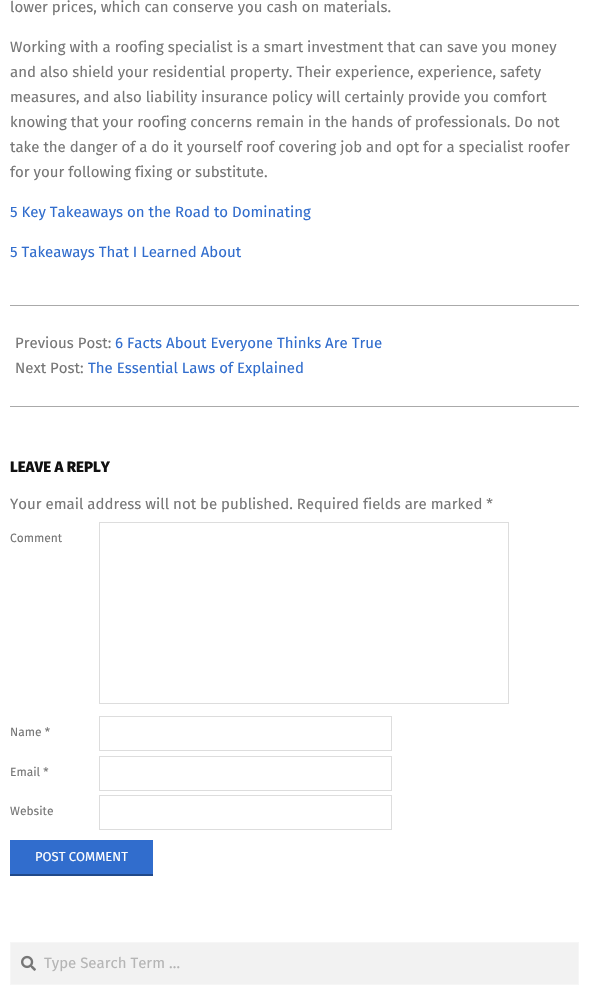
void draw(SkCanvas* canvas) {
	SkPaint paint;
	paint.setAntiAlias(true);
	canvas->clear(0xffffffff);
	paint.setColor(0xffaaaaaa);
	canvas->drawRect(SkRect::MakeXYWH(10, 305, 569, 1), paint);
	SkFont f1(fontMgr->matchFamilyStyle("Fira Sans", SkFontStyle::Normal()), 15);
	f1.setSubpixel(true);
	paint.setColor(0xff777777);
	canvas->drawString("lower prices, which can conserve you cash on materials.", 10, 12, f1, paint);
	canvas->drawString("Working with a roofing specialist is a smart investment that can save you money", 10, 52, f1, paint);
	canvas->drawString("and also shield your residential property. Their experience, experience, safety", 10, 77, f1, paint);
	canvas->drawString("measures, and also liability insurance policy will certainly provide you comfort", 10, 102, f1, paint);
	canvas->drawString("knowing that your roofing concerns remain in the hands of professionals. Do not", 10, 127, f1, paint);
	canvas->drawString("take the danger of a do it yourself roof covering job and opt for a specialist roofer", 10, 152, f1, paint);
	canvas->drawString("for your following fixing or substitute.", 10, 177, f1, paint);
	paint.setColor(0xff316dcd);
	canvas->drawString("5 Key Takeaways on the Road to Dominating", 10, 217, f1, paint);
	canvas->drawString("5 Takeaways That I Learned About", 10, 257, f1, paint);
	paint.setColor(0xffaaaaaa);
	canvas->drawRect(SkRect::MakeXYWH(10, 406, 569, 1), paint);
	paint.setColor(0xff777777);
	canvas->drawString("Previous Post:", 15, 348, f1, paint);
	paint.setColor(0xff316dcd);
	canvas->drawString("6 Facts About Everyone Thinks Are True", 115, 348, f1, paint);
	paint.setColor(0xff777777);
	canvas->drawString("Next Post:", 15, 373, f1, paint);
	paint.setColor(0xff316dcd);
	canvas->drawString("The Essential Laws of Explained", 88, 373, f1, paint);
	SkFont f2(fontMgr->matchFamilyStyle("Fira Sans", SkFontStyle(800, SkFontStyle::kNormal_Width, SkFontStyle::kUpright_Slant)), 15);
	f2.setSubpixel(true);
	paint.setColor(0xff111111);
	canvas->drawString("LEAVE A REPLY", 10, 472, f2, paint);
	paint.setColor(0xff777777);
	canvas->drawString("Your email address will not be published. Required fields are marked *", 10, 509, f1, paint);
	SkFont f3(fontMgr->matchFamilyStyle("Fira Sans", SkFontStyle::Normal()), 12);
	f3.setSubpixel(true);
	canvas->drawString("Comment", 10, 542, f3, paint);
	paint.setStroke(true);
	paint.setStrokeWidth(1);
	paint.setColor(0xffdddddd);
	canvas->drawRect(SkRect::MakeXYWH(99.5, 522.5, 409, 181), paint);
	paint.setStroke(false);
	paint.setColor(0xff777777);
	canvas->drawString("Name *", 10, 736, f3, paint);
	paint.setStroke(true);
	paint.setColor(0xffdddddd);
	canvas->drawRect(SkRect::MakeXYWH(99.5, 716.5, 292, 34), paint);
	paint.setStroke(false);
	paint.setColor(0xff777777);
	canvas->drawString("Email *", 10, 776, f3, paint);
	paint.setStroke(true);
	paint.setColor(0xffdddddd);
	canvas->drawRect(SkRect::MakeXYWH(99.5, 756.5, 292, 34), paint);
	paint.setStroke(false);
	paint.setColor(0xff777777);
	canvas->drawString("Website", 10, 815, f3, paint);
	paint.setStroke(true);
	paint.setColor(0xffdddddd);
	canvas->drawRect(SkRect::MakeXYWH(99.5, 795.5, 292, 34), paint);
	paint.setStroke(false);
	paint.setColor(0xff316dcd);
	canvas->drawRect(SkRect::MakeXYWH(10, 840, 143, 34), paint);
	paint.setColor(0xff214989);
	canvas->drawRect(SkRect::MakeXYWH(10, 874, 143, 2), paint);
	SkFont f4(fontMgr->matchFamilyStyle("Fira Sans", SkFontStyle::Normal()), 13);
	f4.setSubpixel(true);
	paint.setColor(0xffffffff);
	canvas->drawString("POST COMMENT", 35, 861, f4, paint);
	paint.setColor(0xfff2f2f2);
	canvas->drawRect(SkRect::MakeXYWH(10.5, 942.5, 568, 42), paint);
	paint.setStroke(true);
	paint.setColor(0xfff6f6f6);
	canvas->drawRect(SkRect::MakeXYWH(10.5, 942.5, 568, 42), paint);
	canvas->drawImageRect(SkImages::DeferredFromEncodedData(SkData::MakeFromFileName("img1.png")), SkRect::MakeXYWH(21, 955, 15, 16), SkSamplingOptions());
	paint.setStroke(false);
	paint.setColor(0xffb5b5b5);
	canvas->drawString("Type Search Term …", 44, 968, f1, paint);
}
